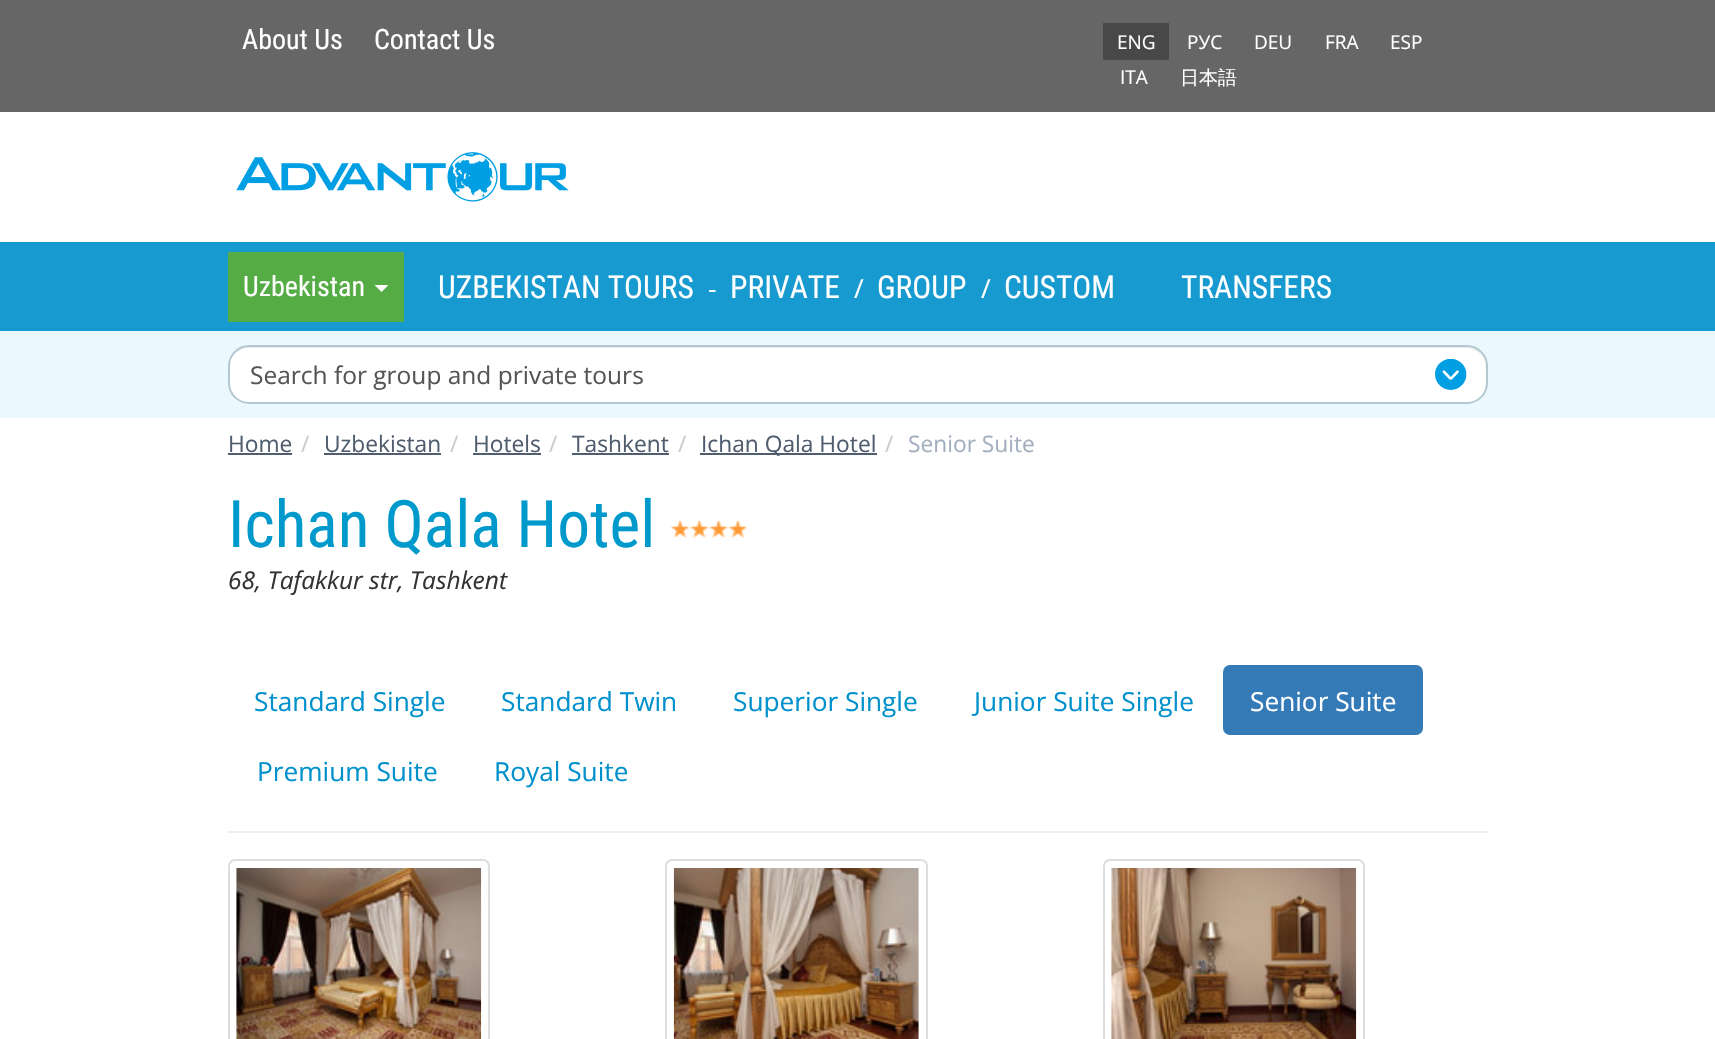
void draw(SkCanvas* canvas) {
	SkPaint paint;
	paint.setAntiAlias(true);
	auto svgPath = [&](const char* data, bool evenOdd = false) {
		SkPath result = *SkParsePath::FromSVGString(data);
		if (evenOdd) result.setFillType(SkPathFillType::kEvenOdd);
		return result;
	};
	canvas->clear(0xffffffff);
	paint.setColor(0xff666666);
	canvas->drawRect(SkRect::MakeXYWH(0, 0, 1715, 112), paint);
	SkFont f1(fontMgr->matchFamilyStyle("Roboto Condensed", SkFontStyle::Normal()), 28);
	f1.setSubpixel(true);
	paint.setColor(0xffffffff);
	canvas->drawString("About Us", 242, 49, f1, paint);
	canvas->drawString("Contact Us", 374, 49, f1, paint);
	paint.setColor(0xff484848);
	canvas->drawRect(SkRect::MakeXYWH(1103, 23, 66, 37), paint);
	SkFont f2(fontMgr->matchFamilyStyle("Open Sans", SkFontStyle::Normal()), 19);
	f2.setSubpixel(true);
	paint.setColor(0xffffffff);
	canvas->drawString("ENG", 1117, 49, f2, paint);
	canvas->drawString("РУС", 1187, 49, f2, paint);
	canvas->drawString("DEU", 1254, 49, f2, paint);
	canvas->drawString("FRA", 1325, 49, f2, paint);
	canvas->drawString("ESP", 1390, 49, f2, paint);
	canvas->drawString("ITA", 1120, 84, f2, paint);
	SkFont f3(fontMgr->matchFamilyStyle("WenQuanYi Zen Hei", SkFontStyle(500, SkFontStyle::kNormal_Width, SkFontStyle::kUpright_Slant)), 19);
	f3.setSubpixel(true);
	canvas->drawString("日本語", 1180, 84, f3, paint);
	canvas->drawImageRect(SkImages::DeferredFromEncodedData(SkData::MakeFromFileName("img1.png")), SkRect::MakeXYWH(236, 152, 333, 50), SkSamplingOptions());
	paint.setColor(0xff169ad0);
	canvas->drawRect(SkRect::MakeXYWH(0, 242, 1715, 89), paint);
	paint.setColor(0xff55ac45);
	canvas->drawRect(SkRect::MakeXYWH(228, 252, 176, 70), paint);
	paint.setColor(0xffffffff);
	canvas->drawString("Uzbekistan", 243, 296, f1, paint);
	canvas->drawPath(svgPath("M374.5 285H388.5L381.5 292Z"), paint);
	SkFont f4(fontMgr->matchFamilyStyle("Roboto Condensed", SkFontStyle::Normal()), 31.5);
	f4.setSubpixel(true);
	canvas->drawString("UZBEKISTAN TOURS", 438, 298, f4, paint);
	SkFont f5(fontMgr->matchFamilyStyle("Open Sans", SkFontStyle::Normal()), 26.25);
	f5.setSubpixel(true);
	canvas->drawString("-", 708, 298, f5, paint);
	canvas->drawString("PRIVATE", 730, 298, f4, paint);
	canvas->drawString("/", 854, 298, f5, paint);
	canvas->drawString("GROUP", 877, 298, f4, paint);
	canvas->drawString("/", 981, 298, f5, paint);
	canvas->drawString("CUSTOM", 1004, 298, f4, paint);
	canvas->drawString("TRANSFERS", 1181, 298, f4, paint);
	paint.setColor(0xffebf9ff);
	canvas->drawRect(SkRect::MakeXYWH(0, 331, 1715, 87), paint);
	paint.setColor(0xffffffff);
	canvas->drawRoundRect(SkRect::MakeXYWH(228, 345, 1260, 59), 21, 21, paint);
	paint.setColor(0xffececec);
	canvas->drawPath(svgPath("M248 348H1466C1477 348 1486 357 1486 368V366C1486 356 1477 347 1467 347H248C238 347 229 356 229 366V368C229 357 238 348 248 348Z"), paint);
	paint.setStroke(true);
	paint.setStrokeWidth(2);
	paint.setColor(0xffb2c8d1);
	canvas->drawRoundRect(SkRect::MakeXYWH(229, 346, 1258, 57), 20, 20, paint);
	SkFont f6(fontMgr->matchFamilyStyle("Open Sans", SkFontStyle::Normal()), 24.5);
	f6.setSubpixel(true);
	paint.setStroke(false);
	paint.setColor(0xff555555);
	canvas->drawString("Search for group and private tours", 250, 384, f6, paint);
	canvas->drawImageRect(SkImages::DeferredFromEncodedData(SkData::MakeFromFileName("img2.png")), SkRect::MakeXYWH(1435, 359, 32, 31), SkSamplingOptions());
	SkFont f7(fontMgr->matchFamilyStyle("Open Sans", SkFontStyle::Normal()), 22.75);
	f7.setSubpixel(true);
	paint.setColor(0xff4f5d6e);
	canvas->drawString("Home", 228, 452, f7, paint);
	canvas->drawRect(SkRect::MakeXYWH(228, 453, 64, 2), paint);
	paint.setColor(0xffcccccc);
	canvas->drawString("/", 301, 452, f7, paint);
	paint.setColor(0xff4f5d6e);
	canvas->drawString("Uzbekistan", 324, 452, f7, paint);
	canvas->drawRect(SkRect::MakeXYWH(324, 453, 117, 2), paint);
	paint.setColor(0xffcccccc);
	canvas->drawString("/", 450, 452, f7, paint);
	paint.setColor(0xff4f5d6e);
	canvas->drawString("Hotels", 473, 452, f7, paint);
	canvas->drawRect(SkRect::MakeXYWH(473, 453, 68, 2), paint);
	paint.setColor(0xffcccccc);
	canvas->drawString("/", 549, 452, f7, paint);
	paint.setColor(0xff4f5d6e);
	canvas->drawString("Tashkent", 572, 452, f7, paint);
	canvas->drawRect(SkRect::MakeXYWH(572, 453, 97, 2), paint);
	paint.setColor(0xffcccccc);
	canvas->drawString("/", 678, 452, f7, paint);
	paint.setColor(0xff4f5d6e);
	canvas->drawRect(SkRect::MakeXYWH(700, 453, 177, 2), paint);
	canvas->drawString("Ichan Qala Hotel", 701, 452, f7, paint);
	paint.setColor(0xffcccccc);
	canvas->drawString("/", 885, 452, f7, paint);
	paint.setColor(0xffa3afbf);
	canvas->drawString("Senior Suite", 908, 452, f7, paint);
	SkFont f8(fontMgr->matchFamilyStyle("Roboto Condensed", SkFontStyle::Normal()), 65.5);
	f8.setSubpixel(true);
	paint.setColor(0xff0099cc);
	canvas->drawString("Ichan Qala Hotel", 228, 547, f8, paint);
	canvas->drawImageRect(SkImages::DeferredFromEncodedData(SkData::MakeFromFileName("img3.png")), SkRect::MakeXYWH(670, 519, 78, 19), SkSamplingOptions());
	SkFont f9(fontMgr->matchFamilyStyle("Open Sans", SkFontStyle::Italic()), 24.5);
	f9.setSubpixel(true);
	paint.setColor(0xff333333);
	canvas->drawString("68, Tafakkur str, Tashkent", 228, 589, f9, paint);
	paint.setColor(0xff0091cc);
	canvas->drawString("Standard Single", 254, 711, f5, paint);
	canvas->drawString("Standard Twin", 501, 711, f5, paint);
	canvas->drawString("Superior Single", 733, 711, f5, paint);
	canvas->drawString("Junior Suite Single", 974, 711, f5, paint);
	paint.setColor(0xff337ab7);
	canvas->drawRoundRect(SkRect::MakeXYWH(1223, 665, 200, 70), 7, 7, paint);
	paint.setColor(0xffffffff);
	canvas->drawString("Senior Suite", 1250, 711, f5, paint);
	paint.setColor(0xff0091cc);
	canvas->drawString("Premium Suite", 257, 781, f5, paint);
	canvas->drawString("Royal Suite", 494, 781, f5, paint);
	paint.setColor(0xffeeeeee);
	canvas->drawRect(SkRect::MakeXYWH(228, 831, 1260, 2), paint);
	paint.setStroke(true);
	paint.setColor(0xffdddddd);
	canvas->drawRoundRect(SkRect::MakeXYWH(229, 860, 260, 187), 6, 6, paint);
	canvas->drawImageRect(SkImages::DeferredFromEncodedData(SkData::MakeFromFileName("img4.png")), SkRect::MakeXYWH(236, 868, 246, 171), SkSamplingOptions());
	canvas->drawRoundRect(SkRect::MakeXYWH(666, 860, 261, 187), 6, 6, paint);
	canvas->drawImageRect(SkImages::DeferredFromEncodedData(SkData::MakeFromFileName("img5.png")), SkRect::MakeXYWH(673, 868, 246, 171), SkSamplingOptions());
	canvas->drawRoundRect(SkRect::MakeXYWH(1104, 860, 260, 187), 6, 6, paint);
	canvas->drawImageRect(SkImages::DeferredFromEncodedData(SkData::MakeFromFileName("img6.png")), SkRect::MakeXYWH(1111, 868, 246, 171), SkSamplingOptions());
}
